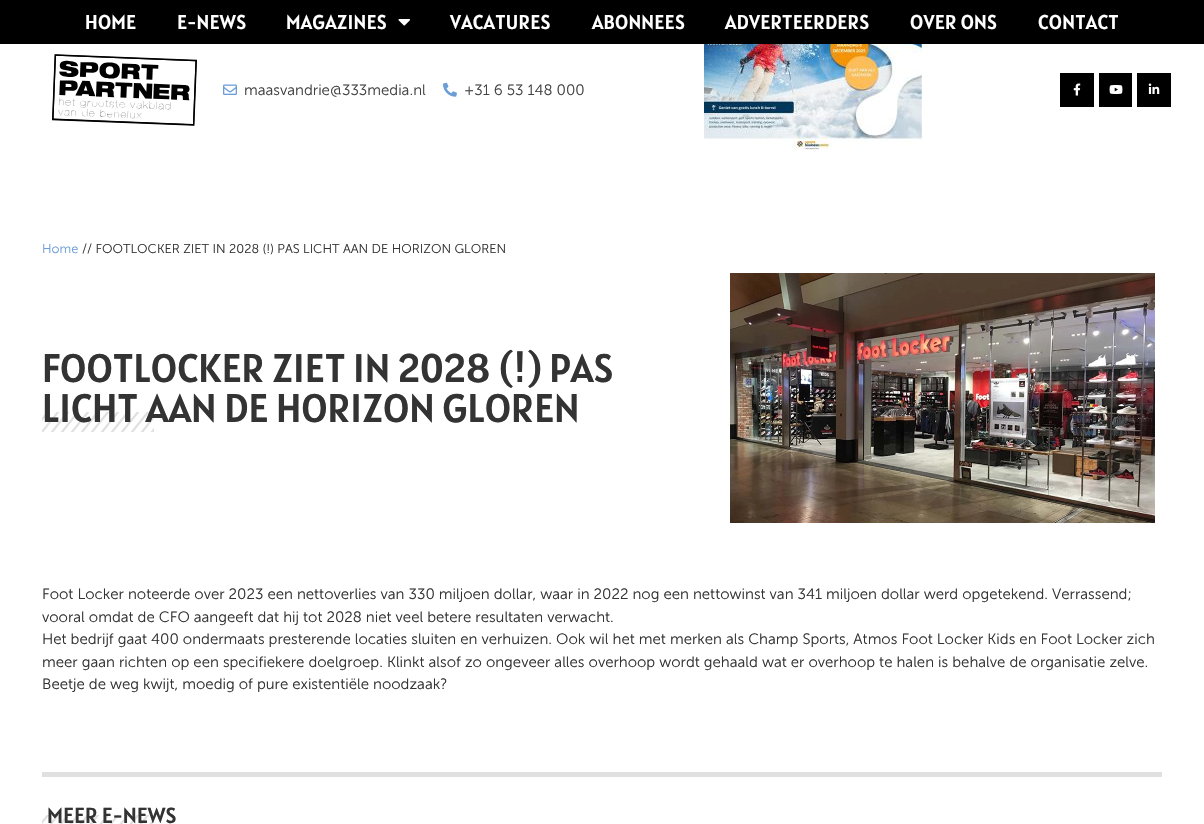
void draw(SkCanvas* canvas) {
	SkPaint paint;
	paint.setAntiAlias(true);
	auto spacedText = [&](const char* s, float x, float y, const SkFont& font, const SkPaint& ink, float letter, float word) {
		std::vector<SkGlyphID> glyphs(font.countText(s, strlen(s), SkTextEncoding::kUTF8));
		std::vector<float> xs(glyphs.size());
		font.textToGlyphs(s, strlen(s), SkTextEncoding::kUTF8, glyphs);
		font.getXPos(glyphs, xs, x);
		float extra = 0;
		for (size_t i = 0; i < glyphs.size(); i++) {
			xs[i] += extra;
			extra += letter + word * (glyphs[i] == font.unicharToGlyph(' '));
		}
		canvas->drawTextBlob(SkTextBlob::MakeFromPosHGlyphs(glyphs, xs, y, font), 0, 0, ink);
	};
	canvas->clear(0xffffffff);
	paint.setColor(0xff000000);
	canvas->drawRect(SkRect::MakeXYWH(0, 0, 1204, 44), paint);
	SkFont f1(fontMgr->matchFamilyStyle("Alatsi", SkFontStyle::Normal()), 20);
	f1.setSubpixel(true);
	paint.setColor(0xffffffff);
	spacedText("HOME", 85, 29, f1, paint, 0.25, 0);
	spacedText("E-NEWS", 177, 29, f1, paint, 0.25, 0);
	spacedText("MAGAZINES", 286, 29, f1, paint, 0.25, 0);
	canvas->drawImageRect(SkImages::DeferredFromEncodedData(SkData::MakeFromFileName("img1.png")), SkRect::MakeXYWH(398, 19, 12, 7), SkSamplingOptions());
	spacedText("VACATURES", 450, 29, f1, paint, 0.25, 0);
	spacedText("ABONNEES", 592, 29, f1, paint, 0.25, 0);
	spacedText("ADVERTEERDERS", 725, 29, f1, paint, 0.25, 0);
	spacedText("OVER ONS", 910, 29, f1, paint, 0.25, 0);
	spacedText("CONTACT", 1038, 29, f1, paint, 0.25, 0);
	canvas->drawImageRect(SkImages::DeferredFromEncodedData(SkData::MakeFromFileName("img2.png")), SkRect::MakeXYWH(52, 54, 145, 72), SkSamplingOptions());
	canvas->drawImageRect(SkImages::DeferredFromEncodedData(SkData::MakeFromFileName("img3.png")), SkRect::MakeXYWH(223, 84, 14, 11), SkSamplingOptions());
	SkFont f2(fontMgr->matchFamilyStyle("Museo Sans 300", SkFontStyle(300, SkFontStyle::kNormal_Width, SkFontStyle::kUpright_Slant)), 15);
	f2.setSubpixel(true);
	paint.setColor(0xff424242);
	canvas->drawString("maasvandrie@333media.nl", 244, 95, f2, paint);
	canvas->drawImageRect(SkImages::DeferredFromEncodedData(SkData::MakeFromFileName("img4.png")), SkRect::MakeXYWH(443, 82, 14, 15), SkSamplingOptions());
	canvas->drawString("+31 6 53 148 000", 464, 95, f2, paint);
	canvas->drawImageRect(SkImages::DeferredFromEncodedData(SkData::MakeFromFileName("img5.png")), SkRect::MakeXYWH(704, 44, 218, 106), SkSamplingOptions());
	paint.setColor(0xff000000);
	canvas->drawRect(SkRect::MakeXYWH(1060, 73, 34, 34), paint);
	canvas->drawImageRect(SkImages::DeferredFromEncodedData(SkData::MakeFromFileName("img6.png")), SkRect::MakeXYWH(1073, 83, 8, 13), SkSamplingOptions());
	canvas->drawRect(SkRect::MakeXYWH(1099, 73, 33, 34), paint);
	canvas->drawImageRect(SkImages::DeferredFromEncodedData(SkData::MakeFromFileName("img7.png")), SkRect::MakeXYWH(1109, 85, 14, 9), SkSamplingOptions());
	canvas->drawRect(SkRect::MakeXYWH(1137, 73, 34, 34), paint);
	canvas->drawImageRect(SkImages::DeferredFromEncodedData(SkData::MakeFromFileName("img8.png")), SkRect::MakeXYWH(1148, 83, 12, 11), SkSamplingOptions());
	SkFont f3(fontMgr->matchFamilyStyle("Museo Sans 300", SkFontStyle(300, SkFontStyle::kNormal_Width, SkFontStyle::kUpright_Slant)), 12.75);
	f3.setSubpixel(true);
	paint.setColor(0xff6c9dd7);
	canvas->drawString("Home", 42, 253, f3, paint);
	paint.setColor(0xff333333);
	canvas->drawString("// FOOTLOCKER ZIET IN 2028 (!) PAS LICHT AAN DE HORIZON GLOREN", 82, 253, f3, paint);
	SkFont f4(fontMgr->matchFamilyStyle("Alatsi", SkFontStyle::Normal()), 40);
	f4.setSubpixel(true);
	canvas->drawString("FOOTLOCKER ZIET IN 2028 (!) PAS", 42, 382, f4, paint);
	canvas->drawImageRect(SkImages::DeferredFromEncodedData(SkData::MakeFromFileName("img9.png")), SkRect::MakeXYWH(42, 412, 112, 20), SkSamplingOptions());
	canvas->drawString("LICHT AAN DE HORIZON GLOREN", 42, 422, f4, paint);
	canvas->drawImageRect(SkImages::DeferredFromEncodedData(SkData::MakeFromFileName("img10.png")), SkRect::MakeXYWH(730, 273, 425, 250), SkSamplingOptions());
	canvas->drawString("Foot Locker noteerde over 2023 een nettoverlies van 330 miljoen dollar, waar in 2022 nog een nettowinst van 341 miljoen dollar werd opgetekend. Verrassend;", 42, 599, f2, paint);
	canvas->drawString("vooral omdat de CFO aangeeft dat hij tot 2028 niet veel betere resultaten verwacht.", 42, 622, f2, paint);
	canvas->drawString("Het bedrijf gaat 400 ondermaats presterende locaties sluiten en verhuizen. Ook wil het met merken als Champ Sports, Atmos Foot Locker Kids en Foot Locker zich", 42, 644, f2, paint);
	canvas->drawString("meer gaan richten op een specifiekere doelgroep. Klinkt alsof zo ongeveer alles overhoop wordt gehaald wat er overhoop te halen is behalve de organisatie zelve.", 42, 667, f2, paint);
	canvas->drawString("Beetje de weg kwijt, moedig of pure existentiële noodzaak?", 42, 689, f2, paint);
	paint.setColor(0xffe0e0e0);
	canvas->drawRect(SkRect::MakeXYWH(42, 772, 1120, 5), paint);
	canvas->drawImageRect(SkImages::DeferredFromEncodedData(SkData::MakeFromFileName("img11.png")), SkRect::MakeXYWH(42, 815, 112, 9), SkSamplingOptions());
	SkFont f5(fontMgr->matchFamilyStyle("Alatsi", SkFontStyle::Normal()), 22);
	f5.setSubpixel(true);
	paint.setColor(0xff333333);
	canvas->drawString("MEER E-NEWS", 47, 823, f5, paint);
}
